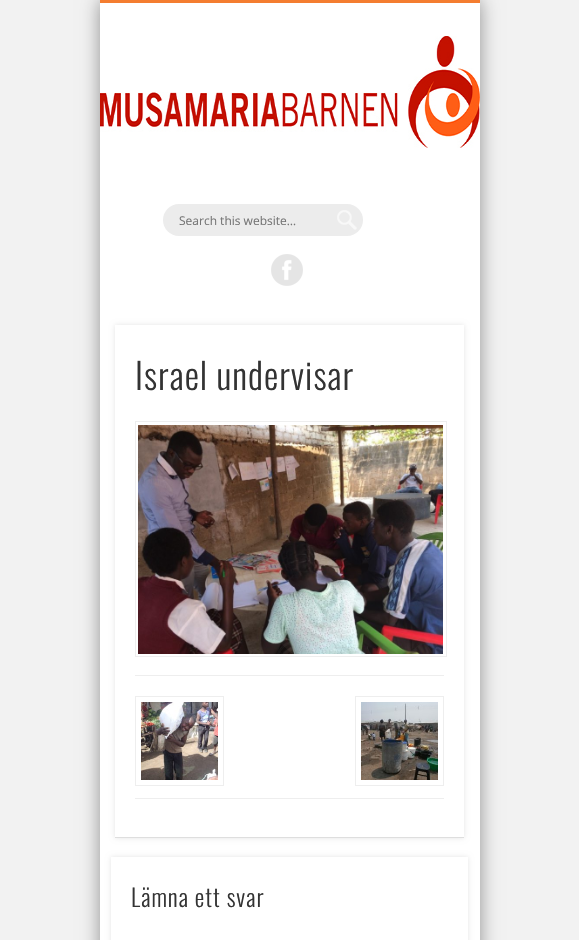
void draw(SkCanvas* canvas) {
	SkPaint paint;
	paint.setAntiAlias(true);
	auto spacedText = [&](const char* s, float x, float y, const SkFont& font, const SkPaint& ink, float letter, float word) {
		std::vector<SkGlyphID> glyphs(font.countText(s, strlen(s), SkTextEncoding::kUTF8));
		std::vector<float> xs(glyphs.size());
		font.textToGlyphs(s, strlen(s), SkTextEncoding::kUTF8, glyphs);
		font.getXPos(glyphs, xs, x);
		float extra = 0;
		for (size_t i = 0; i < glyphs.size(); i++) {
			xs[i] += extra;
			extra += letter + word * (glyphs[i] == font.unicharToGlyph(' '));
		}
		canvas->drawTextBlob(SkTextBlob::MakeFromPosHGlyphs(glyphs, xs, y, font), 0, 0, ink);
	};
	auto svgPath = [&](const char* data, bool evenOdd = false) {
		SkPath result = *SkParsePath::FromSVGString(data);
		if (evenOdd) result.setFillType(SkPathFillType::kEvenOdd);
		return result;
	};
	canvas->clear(0xfff2f2f2);
	paint.setColor(0x66000000);
	paint.setMaskFilter(SkMaskFilter::MakeBlur(kNormal_SkBlurStyle, 9));
	canvas->drawRect(SkRect::MakeXYWH(100, 0, 380, 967), paint);
	paint.setMaskFilter(nullptr);
	paint.setColor(0xffffffff);
	canvas->drawRect(SkRect::MakeXYWH(100, 3, 380, 937), paint);
	paint.setColor(0xfff47d30);
	canvas->drawRect(SkRect::MakeXYWH(100, 0, 380, 3), paint);
	canvas->drawImageRect(SkImages::DeferredFromEncodedData(SkData::MakeFromFileName("img1.png")), SkRect::MakeXYWH(100, 36, 380, 112), SkSamplingOptions());
	paint.setColor(0xffececec);
	canvas->drawRoundRect(SkRect::MakeXYWH(163, 204, 200, 32), 16, 16, paint);
	canvas->drawImageRect(SkImages::DeferredFromEncodedData(SkData::MakeFromFileName("img2.png")), SkRect::MakeXYWH(337, 210, 20, 20), SkSamplingOptions());
	SkFont f1(fontMgr->matchFamilyStyle("Open Sans", SkFontStyle::Normal()), 12);
	f1.setSubpixel(true);
	paint.setColor(0xff757575);
	canvas->drawString("Search this website…", 179, 225, f1, paint);
	canvas->drawImageRect(SkImages::DeferredFromEncodedData(SkData::MakeFromFileName("img3.png")), SkRect::MakeXYWH(271, 254, 32, 32), SkSamplingOptions());
	canvas->save();
	canvas->clipPath(svgPath("M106 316H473V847H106ZM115 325H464V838H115Z", true), true);
	paint.setColor(0x1a000000);
	paint.setMaskFilter(SkMaskFilter::MakeBlur(kNormal_SkBlurStyle, 2.5));
	canvas->drawRect(SkRect::MakeXYWH(115, 325, 349, 513), paint);
	paint.setMaskFilter(nullptr);
	canvas->restore();
	paint.setColor(0xffdedede);
	canvas->drawRect(SkRect::MakeXYWH(115, 837, 349, 1), paint);
	SkFont f2(fontMgr->matchFamilyStyle("Oswald", SkFontStyle(300, SkFontStyle::kNormal_Width, SkFontStyle::kUpright_Slant)), 36);
	f2.setSubpixel(true);
	paint.setColor(0xff333333);
	spacedText("Israel undervisar", 135, 390, f2, paint, 1, 0);
	paint.setStroke(true);
	paint.setStrokeWidth(1);
	paint.setColor(0xffeeeeee);
	canvas->drawRect(SkRect::MakeXYWH(135.5, 421.5, 311, 235), paint);
	canvas->drawImageRect(SkImages::DeferredFromEncodedData(SkData::MakeFromFileName("img4.png")), SkRect::MakeXYWH(138, 425, 305, 229), SkSamplingOptions());
	paint.setStroke(false);
	canvas->drawRect(SkRect::MakeXYWH(135, 675, 309, 1), paint);
	canvas->drawRect(SkRect::MakeXYWH(135, 798, 309, 1), paint);
	paint.setStroke(true);
	canvas->drawRect(SkRect::MakeXYWH(135.5, 696.5, 88, 89), paint);
	canvas->drawImageRect(SkImages::DeferredFromEncodedData(SkData::MakeFromFileName("img5.png")), SkRect::MakeXYWH(141, 702, 77, 78), SkSamplingOptions());
	canvas->drawRect(SkRect::MakeXYWH(355.5, 696.5, 88, 89), paint);
	canvas->drawImageRect(SkImages::DeferredFromEncodedData(SkData::MakeFromFileName("img6.png")), SkRect::MakeXYWH(361, 702, 77, 78), SkSamplingOptions());
	canvas->save();
	canvas->clipPath(svgPath("M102 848H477V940H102ZM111 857H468V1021H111Z", true), true);
	paint.setStroke(false);
	paint.setColor(0x1a000000);
	paint.setMaskFilter(SkMaskFilter::MakeBlur(kNormal_SkBlurStyle, 2.5));
	canvas->drawRect(SkRect::MakeXYWH(111, 857, 357, 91), paint);
	paint.setMaskFilter(nullptr);
	canvas->restore();
	SkFont f3(fontMgr->matchFamilyStyle("Oswald", SkFontStyle(300, SkFontStyle::kNormal_Width, SkFontStyle::kUpright_Slant)), 24);
	f3.setSubpixel(true);
	paint.setColor(0xff333333);
	spacedText("Lämna ett svar", 131, 907, f3, paint, 1, 0);
}
